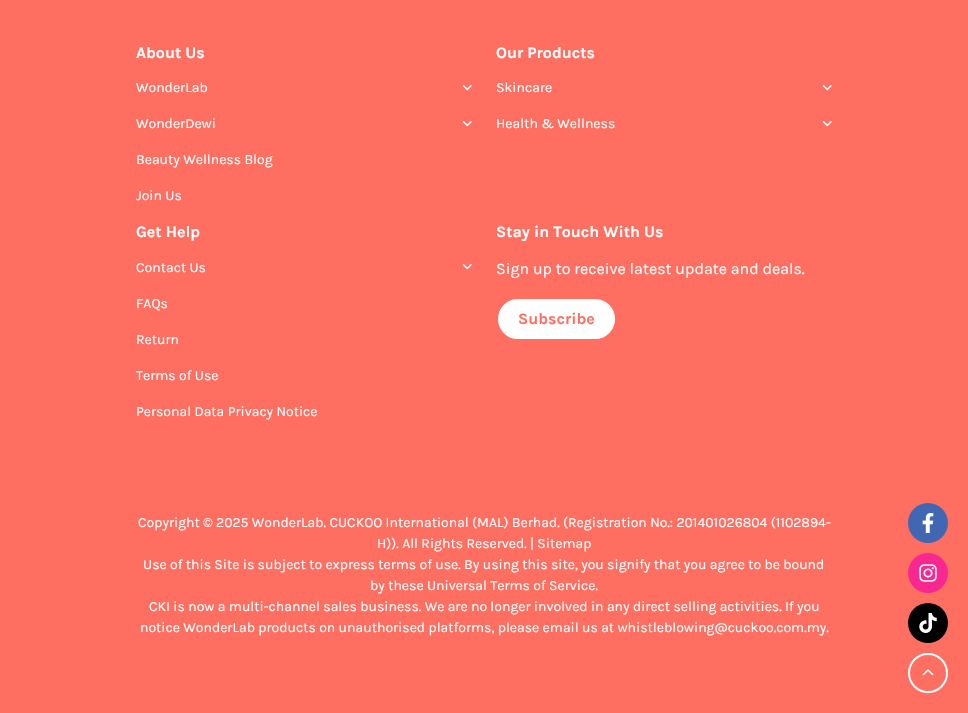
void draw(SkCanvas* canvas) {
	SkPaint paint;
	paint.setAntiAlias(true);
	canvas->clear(0xffff6f61);
	SkFont f1(fontMgr->matchFamilyStyle("Karla", SkFontStyle::Bold()), 16);
	f1.setSubpixel(true);
	paint.setColor(0xffffffff);
	canvas->drawString("About Us", 136, 58, f1, paint);
	SkFont f2(fontMgr->matchFamilyStyle("Karla", SkFontStyle::Normal()), 14);
	f2.setSubpixel(true);
	canvas->drawString("WonderLab", 136, 92, f2, paint);
	canvas->drawImageRect(SkImages::DeferredFromEncodedData(SkData::MakeFromFileName("img1.png")), SkRect::MakeXYWH(462, 85, 10, 6), SkSamplingOptions());
	canvas->drawString("WonderDewi", 136, 128, f2, paint);
	canvas->drawImageRect(SkImages::DeferredFromEncodedData(SkData::MakeFromFileName("img1.png")), SkRect::MakeXYWH(462, 121, 10, 6), SkSamplingOptions());
	canvas->drawString("Beauty Wellness Blog", 136, 164, f2, paint);
	canvas->drawString("Join Us", 136, 200, f2, paint);
	canvas->drawString("Our Products", 496, 58, f1, paint);
	canvas->drawString("Skincare", 496, 92, f2, paint);
	canvas->drawImageRect(SkImages::DeferredFromEncodedData(SkData::MakeFromFileName("img1.png")), SkRect::MakeXYWH(822, 85, 10, 6), SkSamplingOptions());
	canvas->drawString("Health & Wellness", 496, 128, f2, paint);
	canvas->drawImageRect(SkImages::DeferredFromEncodedData(SkData::MakeFromFileName("img1.png")), SkRect::MakeXYWH(822, 121, 10, 6), SkSamplingOptions());
	canvas->drawString("Get Help", 136, 237, f1, paint);
	canvas->drawString("Contact Us", 136, 272, f2, paint);
	canvas->drawImageRect(SkImages::DeferredFromEncodedData(SkData::MakeFromFileName("img1.png")), SkRect::MakeXYWH(462, 264, 10, 6), SkSamplingOptions());
	canvas->drawString("FAQs", 136, 308, f2, paint);
	canvas->drawString("Return", 136, 344, f2, paint);
	canvas->drawString("Terms of Use", 136, 380, f2, paint);
	canvas->drawString("Personal Data Privacy Notice", 136, 416, f2, paint);
	canvas->drawString("Stay in Touch With Us", 496, 237, f1, paint);
	SkFont f3(fontMgr->matchFamilyStyle("Karla", SkFontStyle::Normal()), 16);
	f3.setSubpixel(true);
	canvas->drawString("Sign up to receive latest update and deals.", 496, 274, f3, paint);
	canvas->drawRoundRect(SkRect::MakeXYWH(497, 298, 119, 42), 21, 21, paint);
	paint.setStroke(true);
	paint.setStrokeWidth(2);
	paint.setColor(0xffff6f61);
	canvas->drawRoundRect(SkRect::MakeXYWH(497, 298, 119, 42), 21, 21, paint);
	paint.setStroke(false);
	canvas->drawString("Subscribe", 518, 324, f1, paint);
	paint.setColor(0xffffffff);
	canvas->drawString("Copyright © 2025 WonderLab. CUCKOO International (MAL) Berhad. (Registration No.: 201401026804 (1102894-", 138, 527, f2, paint);
	canvas->drawString("H)). All Rights Reserved. | Sitemap", 377, 548, f2, paint);
	canvas->drawString("Use of this Site is subject to express terms of use. By using this site, you signify that you agree to be bound", 143, 569, f2, paint);
	canvas->drawString("by these Universal Terms of Service.", 370, 590, f2, paint);
	canvas->drawString("CKI is now a multi-channel sales business. We are no longer involved in any direct selling activities. If you", 149, 611, f2, paint);
	canvas->drawString("notice WonderLab products on unauthorised platforms, please email us at whistleblowing@cuckoo.com.my.", 140, 632, f2, paint);
	paint.setColor(0xff4267b2);
	canvas->drawCircle(928, 523, 20, paint);
	canvas->drawImageRect(SkImages::DeferredFromEncodedData(SkData::MakeFromFileName("img2.png")), SkRect::MakeXYWH(922, 513, 12, 20), SkSamplingOptions());
	paint.setColor(0xfff92891);
	canvas->drawCircle(928, 573, 20, paint);
	canvas->drawImageRect(SkImages::DeferredFromEncodedData(SkData::MakeFromFileName("img3.png")), SkRect::MakeXYWH(919, 564, 18, 18), SkSamplingOptions());
	paint.setColor(0xff000000);
	canvas->drawCircle(928, 623, 20, paint);
	canvas->drawImageRect(SkImages::DeferredFromEncodedData(SkData::MakeFromFileName("img4.png")), SkRect::MakeXYWH(919, 613, 18, 20), SkSamplingOptions());
	paint.setStroke(true);
	paint.setColor(0xffffffff);
	canvas->drawCircle(928, 673, 19, paint);
	canvas->drawImageRect(SkImages::DeferredFromEncodedData(SkData::MakeFromFileName("img5.png")), SkRect::MakeXYWH(922, 669, 12, 7), SkSamplingOptions());
}
